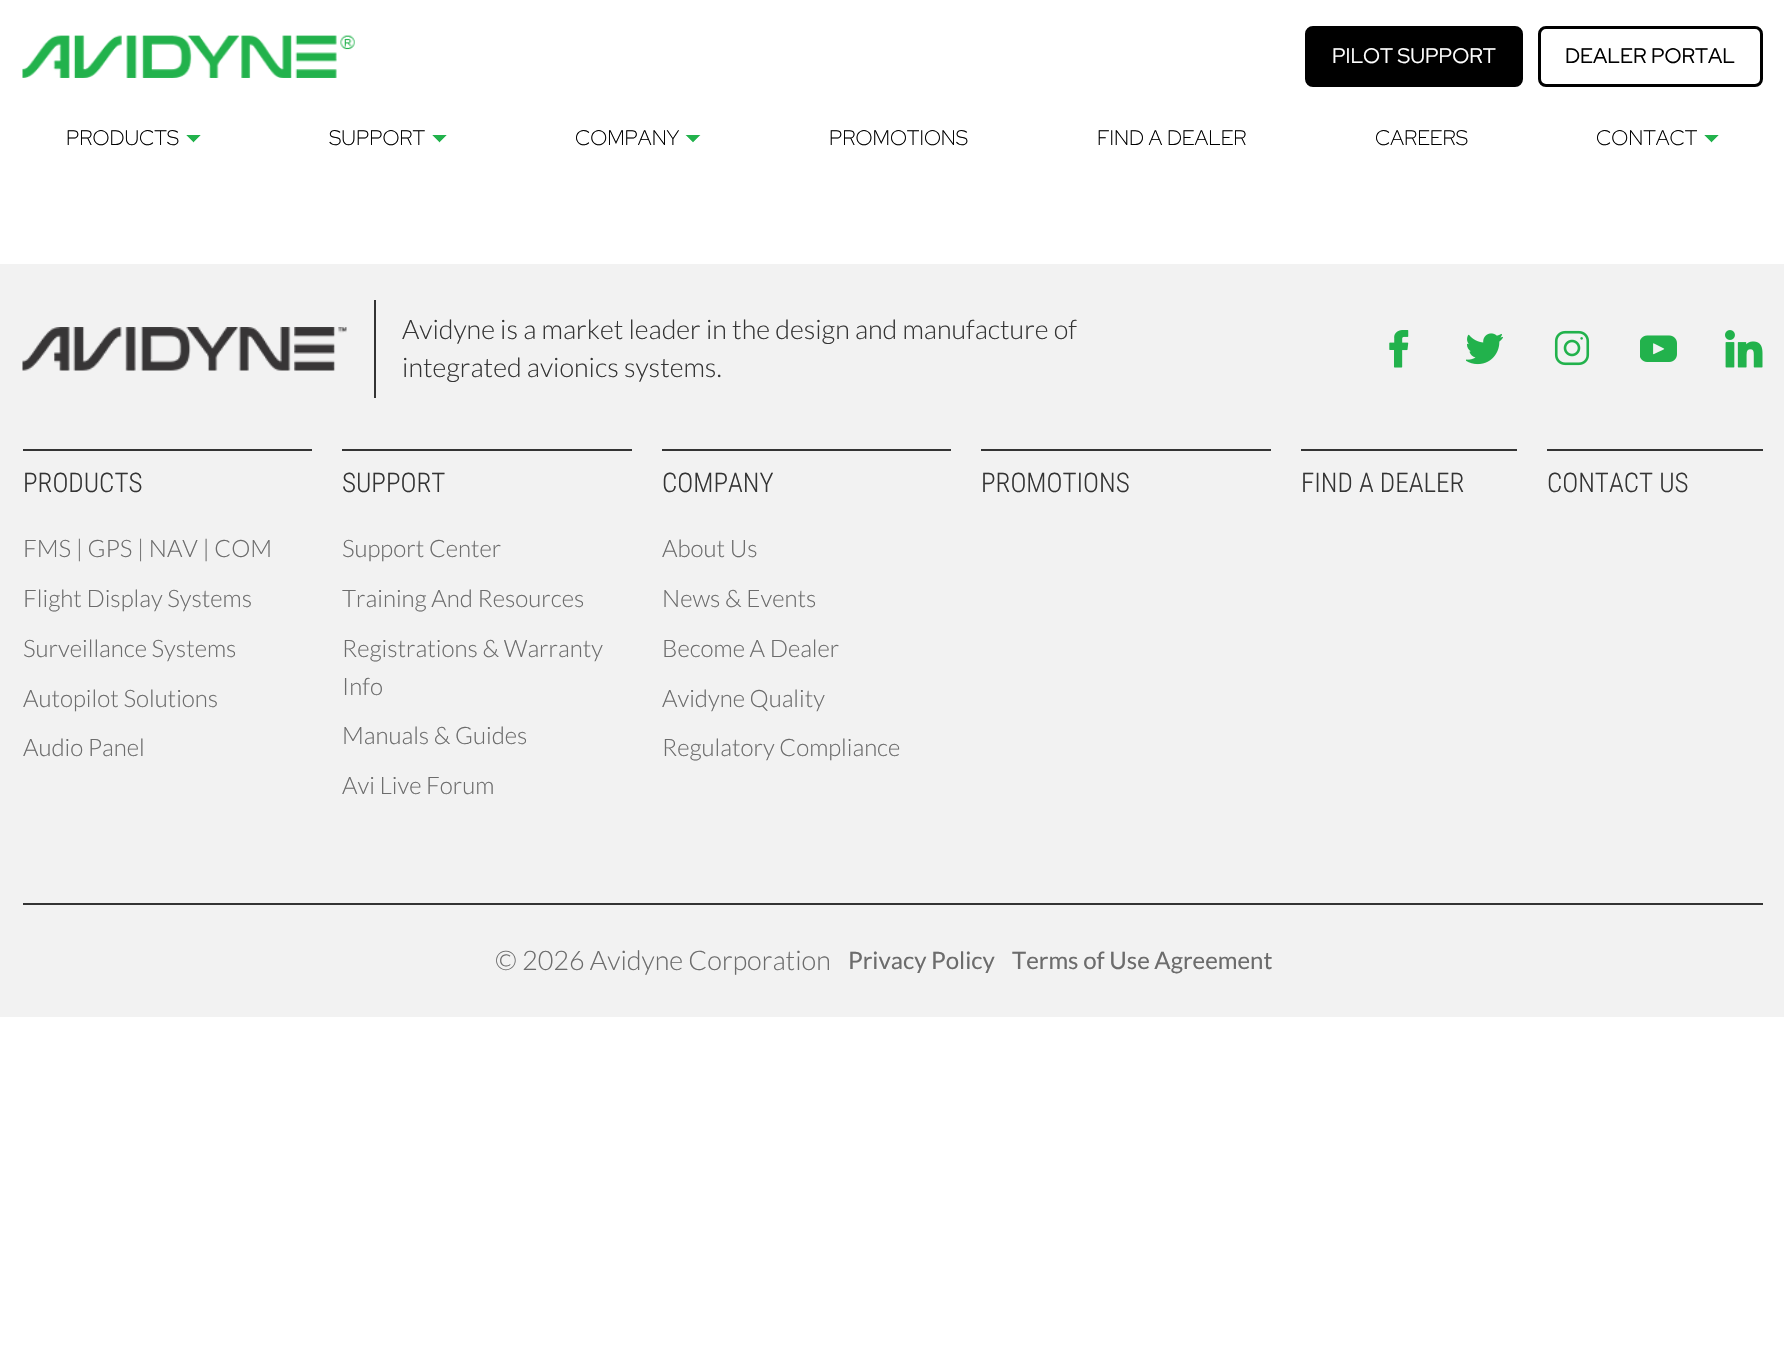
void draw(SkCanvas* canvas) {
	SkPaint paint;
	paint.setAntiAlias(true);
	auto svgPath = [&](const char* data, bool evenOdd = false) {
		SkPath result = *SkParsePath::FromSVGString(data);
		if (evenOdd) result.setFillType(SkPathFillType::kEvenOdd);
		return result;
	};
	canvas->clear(0xffffffff);
	canvas->drawImageRect(SkImages::DeferredFromEncodedData(SkData::MakeFromFileName("img1.png")), SkRect::MakeXYWH(22, 35, 333, 43), SkSamplingOptions());
	paint.setColor(0xff000000);
	canvas->drawRoundRect(SkRect::MakeXYWH(1306.5, 27.5, 215, 58), 6.5, 6.5, paint);
	paint.setStroke(true);
	paint.setStrokeWidth(3);
	canvas->drawRoundRect(SkRect::MakeXYWH(1306.5, 27.5, 215, 58), 6.5, 6.5, paint);
	SkFont f1(fontMgr->matchFamilyStyle("Red Hat Display", SkFontStyle::Normal()), 21);
	f1.setSubpixel(true);
	paint.setStroke(false);
	paint.setColor(0xffffffff);
	canvas->drawString("PILOT SUPPORT", 1332, 63, f1, paint);
	paint.setStroke(true);
	paint.setColor(0xff000000);
	canvas->drawRoundRect(SkRect::MakeXYWH(1539.5, 27.5, 222, 58), 6.5, 6.5, paint);
	paint.setStroke(false);
	canvas->drawString("DEALER PORTAL", 1565, 63, f1, paint);
	SkFont f2(fontMgr->matchFamilyStyle("Red Hat Display", SkFontStyle(300, SkFontStyle::kNormal_Width, SkFontStyle::kUpright_Slant)), 21);
	f2.setSubpixel(true);
	canvas->drawString("PRODUCTS", 66, 145, f2, paint);
	paint.setColor(0xff22b24c);
	canvas->drawPath(svgPath("M186 135H201L193.5 142.5Z"), paint);
	paint.setColor(0xffffffff);
	canvas->drawPath(svgPath("M201 135V150L193.5 142.5Z"), paint);
	canvas->drawPath(svgPath("M186 150V135L193.5 142.5Z"), paint);
	paint.setColor(0xff000000);
	canvas->drawString("SUPPORT", 329, 145, f2, paint);
	paint.setColor(0xff22b24c);
	canvas->drawPath(svgPath("M432 135H447L439.5 142.5Z"), paint);
	paint.setColor(0xffffffff);
	canvas->drawPath(svgPath("M447 135V150L439.5 142.5Z"), paint);
	canvas->drawPath(svgPath("M432 150V135L439.5 142.5Z"), paint);
	paint.setColor(0xff000000);
	canvas->drawString("COMPANY", 575, 145, f2, paint);
	paint.setColor(0xff22b24c);
	canvas->drawPath(svgPath("M685.5 135H700.5L693 142.5Z"), paint);
	paint.setColor(0xffffffff);
	canvas->drawPath(svgPath("M700.5 135V150L693 142.5ZM685.5 150V135L693 142.5Z"), paint);
	paint.setColor(0xff000000);
	canvas->drawString("PROMOTIONS", 829, 145, f2, paint);
	canvas->drawString("FIND A DEALER", 1097, 145, f2, paint);
	canvas->drawString("CAREERS", 1375, 145, f2, paint);
	canvas->drawString("CONTACT", 1596, 145, f2, paint);
	paint.setColor(0xff22b24c);
	canvas->drawPath(svgPath("M1704 135H1719L1711.5 142.5Z"), paint);
	paint.setColor(0xffffffff);
	canvas->drawPath(svgPath("M1719 135V150L1711.5 142.5Z"), paint);
	canvas->drawPath(svgPath("M1704 150V135L1711.5 142.5Z"), paint);
	paint.setColor(0xfff2f2f2);
	canvas->drawRect(SkRect::MakeXYWH(0, 264, 1784, 753), paint);
	paint.setColor(0xff343434);
	canvas->drawRect(SkRect::MakeXYWH(374, 300, 2, 98), paint);
	canvas->drawImageRect(SkImages::DeferredFromEncodedData(SkData::MakeFromFileName("img2.png")), SkRect::MakeXYWH(22, 327, 325, 44), SkSamplingOptions());
	SkFont f3(fontMgr->matchFamilyStyle("Lato", SkFontStyle(300, SkFontStyle::kNormal_Width, SkFontStyle::kUpright_Slant)), 26.9);
	f3.setSubpixel(true);
	canvas->drawString("Avidyne is a market leader in the design and manufacture of", 402, 339, f3, paint);
	canvas->drawString("integrated avionics systems.", 402, 377, f3, paint);
	canvas->drawImageRect(SkImages::DeferredFromEncodedData(SkData::MakeFromFileName("img3.png")), SkRect::MakeXYWH(1389, 330, 20, 38), SkSamplingOptions());
	canvas->drawImageRect(SkImages::DeferredFromEncodedData(SkData::MakeFromFileName("img4.png")), SkRect::MakeXYWH(1466, 333, 37, 32), SkSamplingOptions());
	canvas->drawImageRect(SkImages::DeferredFromEncodedData(SkData::MakeFromFileName("img5.png")), SkRect::MakeXYWH(1554, 330, 36, 36), SkSamplingOptions());
	canvas->drawImageRect(SkImages::DeferredFromEncodedData(SkData::MakeFromFileName("img6.png")), SkRect::MakeXYWH(1640, 335, 37, 27), SkSamplingOptions());
	canvas->drawImageRect(SkImages::DeferredFromEncodedData(SkData::MakeFromFileName("img7.png")), SkRect::MakeXYWH(1725, 330, 38, 38), SkSamplingOptions());
	canvas->drawRect(SkRect::MakeXYWH(23, 903, 1740, 2), paint);
	canvas->drawRect(SkRect::MakeXYWH(23, 449, 289, 2), paint);
	SkFont f4(fontMgr->matchFamilyStyle("Roboto Condensed", SkFontStyle(300, SkFontStyle::kNormal_Width, SkFontStyle::kUpright_Slant)), 27);
	f4.setSubpixel(true);
	canvas->drawString("PRODUCTS", 23, 492, f4, paint);
	SkFont f5(fontMgr->matchFamilyStyle("Lato", SkFontStyle(300, SkFontStyle::kNormal_Width, SkFontStyle::kUpright_Slant)), 24);
	f5.setSubpixel(true);
	paint.setColor(0xff6c6c6c);
	canvas->drawString("FMS | GPS | NAV | COM", 23, 557, f5, paint);
	canvas->drawString("Flight Display Systems", 23, 607, f5, paint);
	canvas->drawString("Surveillance Systems", 23, 657, f5, paint);
	canvas->drawString("Autopilot Solutions", 23, 707, f5, paint);
	canvas->drawString("Audio Panel", 23, 756, f5, paint);
	paint.setColor(0xff343434);
	canvas->drawRect(SkRect::MakeXYWH(342, 449, 290, 2), paint);
	canvas->drawString("SUPPORT", 342, 492, f4, paint);
	paint.setColor(0xff6c6c6c);
	canvas->drawString("Support Center", 342, 557, f5, paint);
	canvas->drawString("Training And Resources", 342, 607, f5, paint);
	canvas->drawString("Registrations & Warranty", 342, 657, f5, paint);
	canvas->drawString("Info", 342, 695, f5, paint);
	canvas->drawString("Manuals & Guides", 342, 744, f5, paint);
	canvas->drawString("Avi Live Forum", 342, 794, f5, paint);
	paint.setColor(0xff343434);
	canvas->drawRect(SkRect::MakeXYWH(662, 449, 289, 2), paint);
	canvas->drawString("COMPANY", 662, 492, f4, paint);
	paint.setColor(0xff6c6c6c);
	canvas->drawString("About Us", 662, 557, f5, paint);
	canvas->drawString("News & Events", 662, 607, f5, paint);
	canvas->drawString("Become A Dealer", 662, 657, f5, paint);
	canvas->drawString("Avidyne Quality", 662, 707, f5, paint);
	canvas->drawString("Regulatory Compliance", 662, 756, f5, paint);
	paint.setColor(0xff343434);
	canvas->drawRect(SkRect::MakeXYWH(981, 449, 290, 2), paint);
	canvas->drawString("PROMOTIONS", 981, 492, f4, paint);
	canvas->drawRect(SkRect::MakeXYWH(1301, 449, 216, 2), paint);
	canvas->drawString("FIND A DEALER", 1301, 492, f4, paint);
	canvas->drawRect(SkRect::MakeXYWH(1547, 449, 216, 2), paint);
	canvas->drawString("CONTACT US", 1547, 492, f4, paint);
	SkFont f6(fontMgr->matchFamilyStyle("Lato", SkFontStyle(300, SkFontStyle::kNormal_Width, SkFontStyle::kUpright_Slant)), 27);
	f6.setSubpixel(true);
	paint.setColor(0xff6c6c6c);
	canvas->drawString("© 2026 Avidyne Corporation", 495, 970, f6, paint);
	SkFont f7(fontMgr->matchFamilyStyle("Lato", SkFontStyle::Normal()), 24);
	f7.setSubpixel(true);
	canvas->drawString("Privacy Policy", 848, 969, f7, paint);
	canvas->drawString("Terms of Use Agreement", 1012, 969, f7, paint);
}
